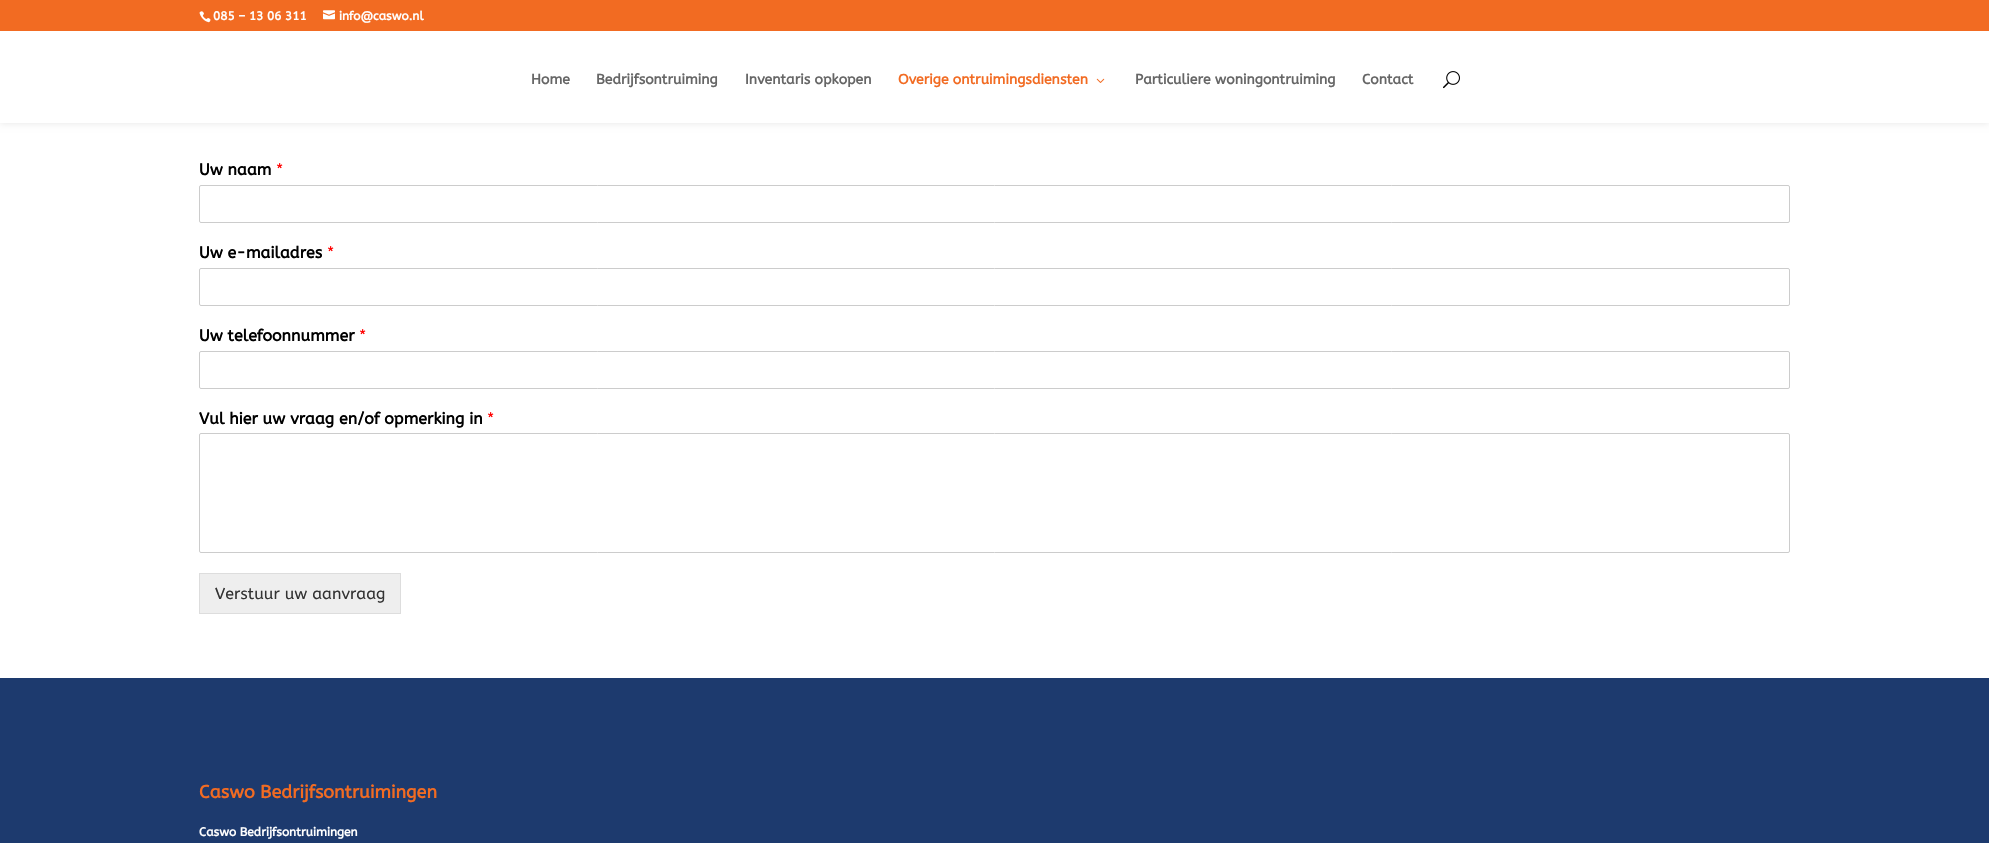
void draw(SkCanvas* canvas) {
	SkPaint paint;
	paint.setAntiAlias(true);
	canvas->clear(0xffffffff);
	paint.setColor(0x1a000000);
	paint.setMaskFilter(SkMaskFilter::MakeBlur(kNormal_SkBlurStyle, 3.5));
	canvas->drawRect(SkRect::MakeXYWH(0, 31, 1989, 92), paint);
	paint.setMaskFilter(nullptr);
	paint.setColor(0xfff26b22);
	canvas->drawRect(SkRect::MakeXYWH(0, 0, 1989, 31), paint);
	canvas->drawImageRect(SkImages::DeferredFromEncodedData(SkData::MakeFromFileName("img1.png")), SkRect::MakeXYWH(199, 11, 12, 12), SkSamplingOptions());
	SkFont f1(fontMgr->matchFamilyStyle("ABeeZee", SkFontStyle::Bold()), 12);
	f1.setSubpixel(true);
	paint.setColor(0xffffffff);
	canvas->drawString("085 – 13 06 311", 213, 20, f1, paint);
	canvas->drawImageRect(SkImages::DeferredFromEncodedData(SkData::MakeFromFileName("img2.png")), SkRect::MakeXYWH(323, 10, 12, 10), SkSamplingOptions());
	canvas->drawString("info@caswo.nl", 339, 20, f1, paint);
	canvas->drawRect(SkRect::MakeXYWH(0, 31, 1989, 92), paint);
	SkFont f2(fontMgr->matchFamilyStyle("ABeeZee", SkFontStyle::Bold()), 14);
	f2.setSubpixel(true);
	paint.setColor(0xff666666);
	canvas->drawString("Home", 531, 84, f2, paint);
	canvas->drawString("Bedrijfsontruiming", 596, 84, f2, paint);
	canvas->drawString("Inventaris opkopen", 745, 84, f2, paint);
	paint.setColor(0xfff26b22);
	canvas->drawString("Overige ontruimingsdiensten", 898, 84, f2, paint);
	canvas->drawImageRect(SkImages::DeferredFromEncodedData(SkData::MakeFromFileName("img3.png")), SkRect::MakeXYWH(1096, 78, 9, 5), SkSamplingOptions());
	paint.setColor(0xff666666);
	canvas->drawString("Particuliere woningontruiming", 1135, 84, f2, paint);
	canvas->drawString("Contact", 1362, 84, f2, paint);
	canvas->drawImageRect(SkImages::DeferredFromEncodedData(SkData::MakeFromFileName("img4.png")), SkRect::MakeXYWH(1443, 71, 17, 18), SkSamplingOptions());
	SkFont f3(fontMgr->matchFamilyStyle("ABeeZee", SkFontStyle::Bold()), 16);
	f3.setSubpixel(true);
	paint.setColor(0xff000000);
	canvas->drawString("Uw naam", 199, 175, f3, paint);
	SkFont f4(fontMgr->matchFamilyStyle("ABeeZee", SkFontStyle::Normal()), 16);
	f4.setSubpixel(true);
	paint.setColor(0xffff0000);
	canvas->drawString("*", 276, 175, f4, paint);
	paint.setStroke(true);
	paint.setStrokeWidth(1);
	paint.setColor(0xffcccccc);
	canvas->drawRoundRect(SkRect::MakeXYWH(199.5, 185.5, 1590, 37), 1.5, 1.5, paint);
	paint.setStroke(false);
	paint.setColor(0xff000000);
	canvas->drawString("Uw e-mailadres", 199, 258, f3, paint);
	paint.setColor(0xffff0000);
	canvas->drawString("*", 327, 258, f4, paint);
	paint.setStroke(true);
	paint.setColor(0xffcccccc);
	canvas->drawRoundRect(SkRect::MakeXYWH(199.5, 268.5, 1590, 37), 1.5, 1.5, paint);
	paint.setStroke(false);
	paint.setColor(0xff000000);
	canvas->drawString("Uw telefoonnummer", 199, 341, f3, paint);
	paint.setColor(0xffff0000);
	canvas->drawString("*", 359, 341, f4, paint);
	paint.setStroke(true);
	paint.setColor(0xffcccccc);
	canvas->drawRoundRect(SkRect::MakeXYWH(199.5, 351.5, 1590, 37), 1.5, 1.5, paint);
	paint.setStroke(false);
	paint.setColor(0xff000000);
	canvas->drawString("Vul hier uw vraag en/of opmerking in", 199, 424, f3, paint);
	paint.setColor(0xffff0000);
	canvas->drawString("*", 487, 424, f4, paint);
	paint.setStroke(true);
	paint.setColor(0xffcccccc);
	canvas->drawRoundRect(SkRect::MakeXYWH(199.5, 433.5, 1590, 119), 1.5, 1.5, paint);
	paint.setStroke(false);
	paint.setColor(0xffeeeeee);
	canvas->drawRect(SkRect::MakeXYWH(199.5, 573.5, 201, 40), paint);
	paint.setStroke(true);
	paint.setColor(0xffdddddd);
	canvas->drawRect(SkRect::MakeXYWH(199.5, 573.5, 201, 40), paint);
	paint.setStroke(false);
	paint.setColor(0xff333333);
	canvas->drawString("Verstuur uw aanvraag", 215, 599, f4, paint);
	paint.setColor(0xff1d3a6e);
	canvas->drawRect(SkRect::MakeXYWH(0, 678, 1989, 165), paint);
	SkFont f5(fontMgr->matchFamilyStyle("ABeeZee", SkFontStyle::Bold()), 18);
	f5.setSubpixel(true);
	paint.setColor(0xfff26b22);
	canvas->drawString("Caswo Bedrijfsontruimingen", 199, 798, f5, paint);
	paint.setColor(0xffffffff);
	canvas->drawString("Caswo Bedrijfsontruimingen", 199, 836, f1, paint);
}
